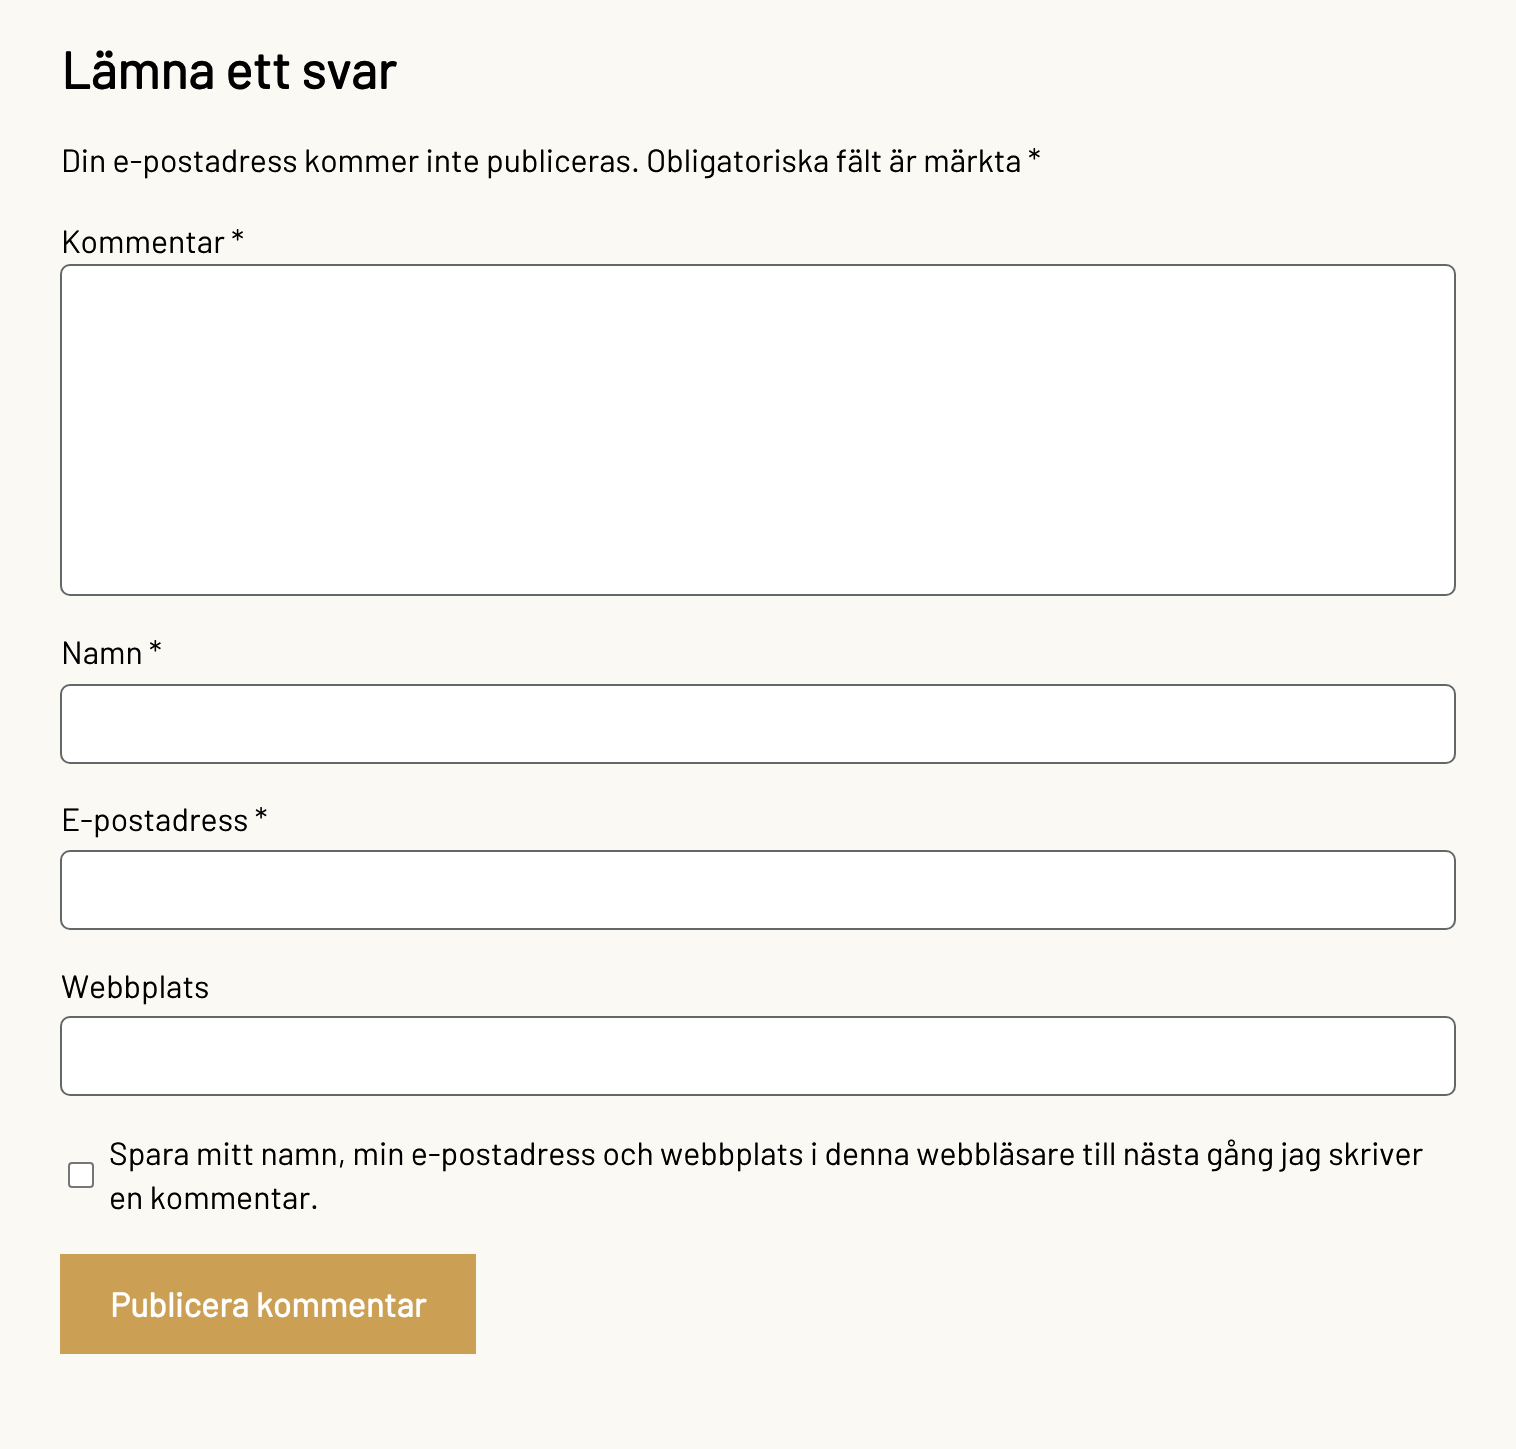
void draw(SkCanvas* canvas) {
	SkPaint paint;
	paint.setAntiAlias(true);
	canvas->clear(0xfffbf9f3);
	SkFont f1(fontMgr->matchFamilyStyle("Barlow", SkFontStyle::Bold()), 52);
	f1.setSubpixel(true);
	paint.setColor(0xff000000);
	canvas->drawString("Lämna ett svar", 61, 89, f1, paint);
	SkFont f2(fontMgr->matchFamilyStyle("Barlow", SkFontStyle::Normal()), 32);
	f2.setSubpixel(true);
	canvas->drawString("Din e-postadress kommer inte publiceras. Obligatoriska fält är märkta *", 61, 172, f2, paint);
	canvas->drawString("Kommentar *", 61, 253, f2, paint);
	paint.setColor(0xffffffff);
	canvas->drawRoundRect(SkRect::MakeXYWH(61, 265, 1394, 330), 9, 9, paint);
	paint.setStroke(true);
	paint.setStrokeWidth(2);
	paint.setColor(0xff626767);
	canvas->drawRoundRect(SkRect::MakeXYWH(61, 265, 1394, 330), 9, 9, paint);
	paint.setStroke(false);
	paint.setColor(0xff000000);
	canvas->drawString("Namn *", 61, 664, f2, paint);
	paint.setColor(0xffffffff);
	canvas->drawRoundRect(SkRect::MakeXYWH(61, 685, 1394, 78), 9, 9, paint);
	paint.setStroke(true);
	paint.setColor(0xff626767);
	canvas->drawRoundRect(SkRect::MakeXYWH(61, 685, 1394, 78), 9, 9, paint);
	paint.setStroke(false);
	paint.setColor(0xff000000);
	canvas->drawString("E-postadress *", 61, 831, f2, paint);
	paint.setColor(0xffffffff);
	canvas->drawRoundRect(SkRect::MakeXYWH(61, 851, 1394, 78), 9, 9, paint);
	paint.setStroke(true);
	paint.setColor(0xff626767);
	canvas->drawRoundRect(SkRect::MakeXYWH(61, 851, 1394, 78), 9, 9, paint);
	paint.setStroke(false);
	paint.setColor(0xff000000);
	canvas->drawString("Webbplats", 61, 998, f2, paint);
	paint.setColor(0xffffffff);
	canvas->drawRoundRect(SkRect::MakeXYWH(61, 1017, 1394, 78), 9, 9, paint);
	paint.setStroke(true);
	paint.setColor(0xff626767);
	canvas->drawRoundRect(SkRect::MakeXYWH(61, 1017, 1394, 78), 9, 9, paint);
	paint.setStroke(false);
	paint.setColor(0xffffffff);
	canvas->drawRoundRect(SkRect::MakeXYWH(69, 1163, 24, 24), 3, 3, paint);
	paint.setStroke(true);
	paint.setColor(0xff767676);
	canvas->drawRoundRect(SkRect::MakeXYWH(69, 1163, 24, 24), 3, 3, paint);
	paint.setStroke(false);
	paint.setColor(0xff000000);
	canvas->drawString("Spara mitt namn, min e-postadress och webbplats i denna webbläsare till nästa gång jag skriver", 109, 1165, f2, paint);
	canvas->drawString("en kommentar.", 109, 1209, f2, paint);
	paint.setColor(0xffcca054);
	canvas->drawRect(SkRect::MakeXYWH(60, 1254, 416, 100), paint);
	SkFont f3(fontMgr->matchFamilyStyle("Barlow", SkFontStyle::Bold()), 34);
	f3.setSubpixel(true);
	paint.setColor(0xffffffff);
	canvas->drawString("Publicera kommentar", 110, 1317, f3, paint);
}
